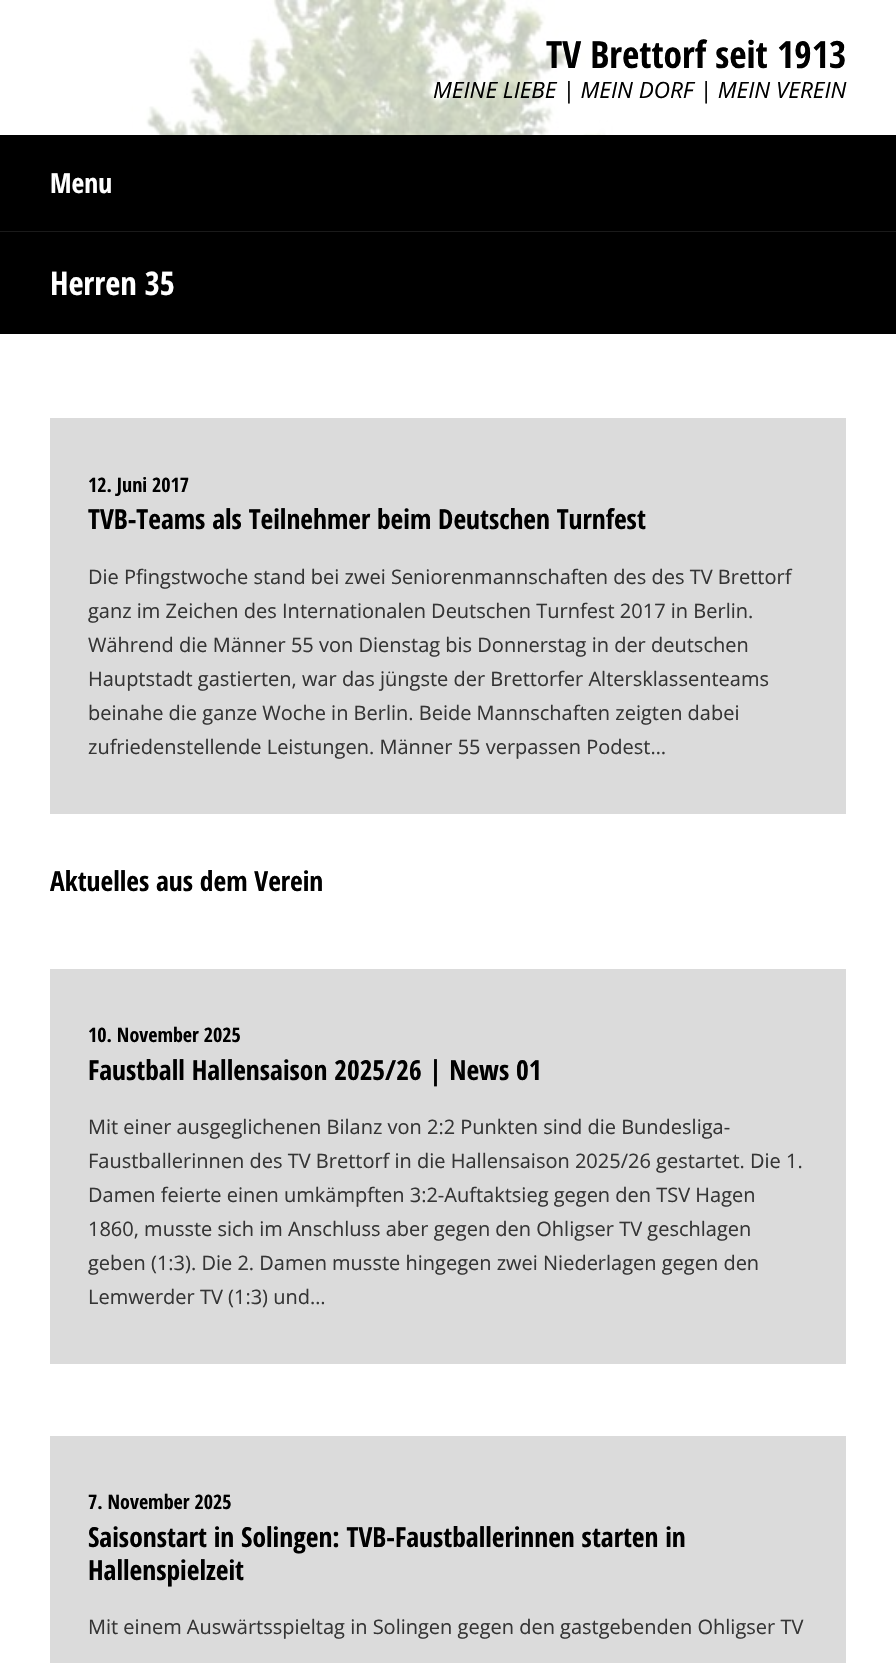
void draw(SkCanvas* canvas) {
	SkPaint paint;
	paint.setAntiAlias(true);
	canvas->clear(0xffffffff);
	canvas->drawImageRect(SkImages::DeferredFromEncodedData(SkData::MakeFromFileName("img1.png")), SkRect::MakeXYWH(0, 0, 896, 135), SkSamplingOptions());
	paint.setColor(0xb3ffffff);
	canvas->drawRect(SkRect::MakeXYWH(133, 0, 478, 135), paint);
	SkFont f1(fontMgr->matchFamilyStyle("Open Sans Condensed", SkFontStyle::Bold()), 37.5);
	f1.setSubpixel(true);
	paint.setColor(0xff000000);
	canvas->drawString("TV Brettorf seit 1913", 546, 68, f1, paint);
	SkFont f2(fontMgr->matchFamilyStyle("Open Sans", SkFontStyle::Italic()), 22.5);
	f2.setSubpixel(true);
	canvas->drawString("MEINE LIEBE | MEIN DORF | MEIN VEREIN", 433, 98, f2, paint);
	canvas->drawRect(SkRect::MakeXYWH(0, 135, 896, 96), paint);
	SkFont f3(fontMgr->matchFamilyStyle("Open Sans Condensed", SkFontStyle::Bold()), 27.5);
	f3.setSubpixel(true);
	paint.setColor(0xffffffff);
	canvas->drawString("Menu", 50, 193, f3, paint);
	paint.setColor(0xff000000);
	canvas->drawRect(SkRect::MakeXYWH(0, 232, 896, 102), paint);
	paint.setColor(0xff1a1a1a);
	canvas->drawRect(SkRect::MakeXYWH(0, 231, 896, 1), paint);
	SkFont f4(fontMgr->matchFamilyStyle("Open Sans Condensed", SkFontStyle::Bold()), 32.5);
	f4.setSubpixel(true);
	paint.setColor(0xffffffff);
	canvas->drawString("Herren 35", 50, 295, f4, paint);
	paint.setColor(0xffdbdbdb);
	canvas->drawRect(SkRect::MakeXYWH(50, 418, 796, 396), paint);
	SkFont f5(fontMgr->matchFamilyStyle("Open Sans Condensed", SkFontStyle::Bold()), 20);
	f5.setSubpixel(true);
	paint.setColor(0xff000000);
	canvas->drawString("12. Juni 2017", 88, 492, f5, paint);
	canvas->drawString("TVB-Teams als Teilnehmer beim Deutschen Turnfest", 88, 529, f3, paint);
	SkFont f6(fontMgr->matchFamilyStyle("Open Sans", SkFontStyle::Normal()), 20);
	f6.setSubpixel(true);
	paint.setColor(0xff353535);
	canvas->drawString("Die Pfingstwoche stand bei zwei Seniorenmannschaften des des TV Brettorf", 88, 584, f6, paint);
	canvas->drawString("ganz im Zeichen des Internationalen Deutschen Turnfest 2017 in Berlin.", 88, 618, f6, paint);
	canvas->drawString("Während die Männer 55 von Dienstag bis Donnerstag in der deutschen", 88, 652, f6, paint);
	canvas->drawString("Hauptstadt gastierten, war das jüngste der Brettorfer Altersklassenteams", 88, 686, f6, paint);
	canvas->drawString("beinahe die ganze Woche in Berlin. Beide Mannschaften zeigten dabei", 88, 720, f6, paint);
	canvas->drawString("zufriedenstellende Leistungen. Männer 55 verpassen Podest…", 88, 754, f6, paint);
	paint.setColor(0xff000000);
	canvas->drawString("Aktuelles aus dem Verein", 50, 891, f3, paint);
	paint.setColor(0xffdbdbdb);
	canvas->drawRect(SkRect::MakeXYWH(50, 969, 796, 395), paint);
	paint.setColor(0xff000000);
	canvas->drawString("10. November 2025", 88, 1042, f5, paint);
	canvas->drawString("Faustball Hallensaison 2025/26 | News 01", 88, 1080, f3, paint);
	paint.setColor(0xff353535);
	canvas->drawString("Mit einer ausgeglichenen Bilanz von 2:2 Punkten sind die Bundesliga-", 88, 1134, f6, paint);
	canvas->drawString("Faustballerinnen des TV Brettorf in die Hallensaison 2025/26 gestartet. Die 1.", 88, 1168, f6, paint);
	canvas->drawString("Damen feierte einen umkämpften 3:2-Auftaktsieg gegen den TSV Hagen", 88, 1202, f6, paint);
	canvas->drawString("1860, musste sich im Anschluss aber gegen den Ohligser TV geschlagen", 88, 1236, f6, paint);
	canvas->drawString("geben (1:3). Die 2. Damen musste hingegen zwei Niederlagen gegen den", 88, 1270, f6, paint);
	canvas->drawString("Lemwerder TV (1:3) und…", 88, 1304, f6, paint);
	paint.setColor(0xffdbdbdb);
	canvas->drawRect(SkRect::MakeXYWH(50, 1436, 796, 227), paint);
	paint.setColor(0xff000000);
	canvas->drawString("7. November 2025", 88, 1509, f5, paint);
	canvas->drawString("Saisonstart in Solingen: TVB-Faustballerinnen starten in", 88, 1547, f3, paint);
	canvas->drawString("Hallenspielzeit", 88, 1580, f3, paint);
	paint.setColor(0xff353535);
	canvas->drawString("Mit einem Auswärtsspieltag in Solingen gegen den gastgebenden Ohligser TV", 88, 1634, f6, paint);
}
